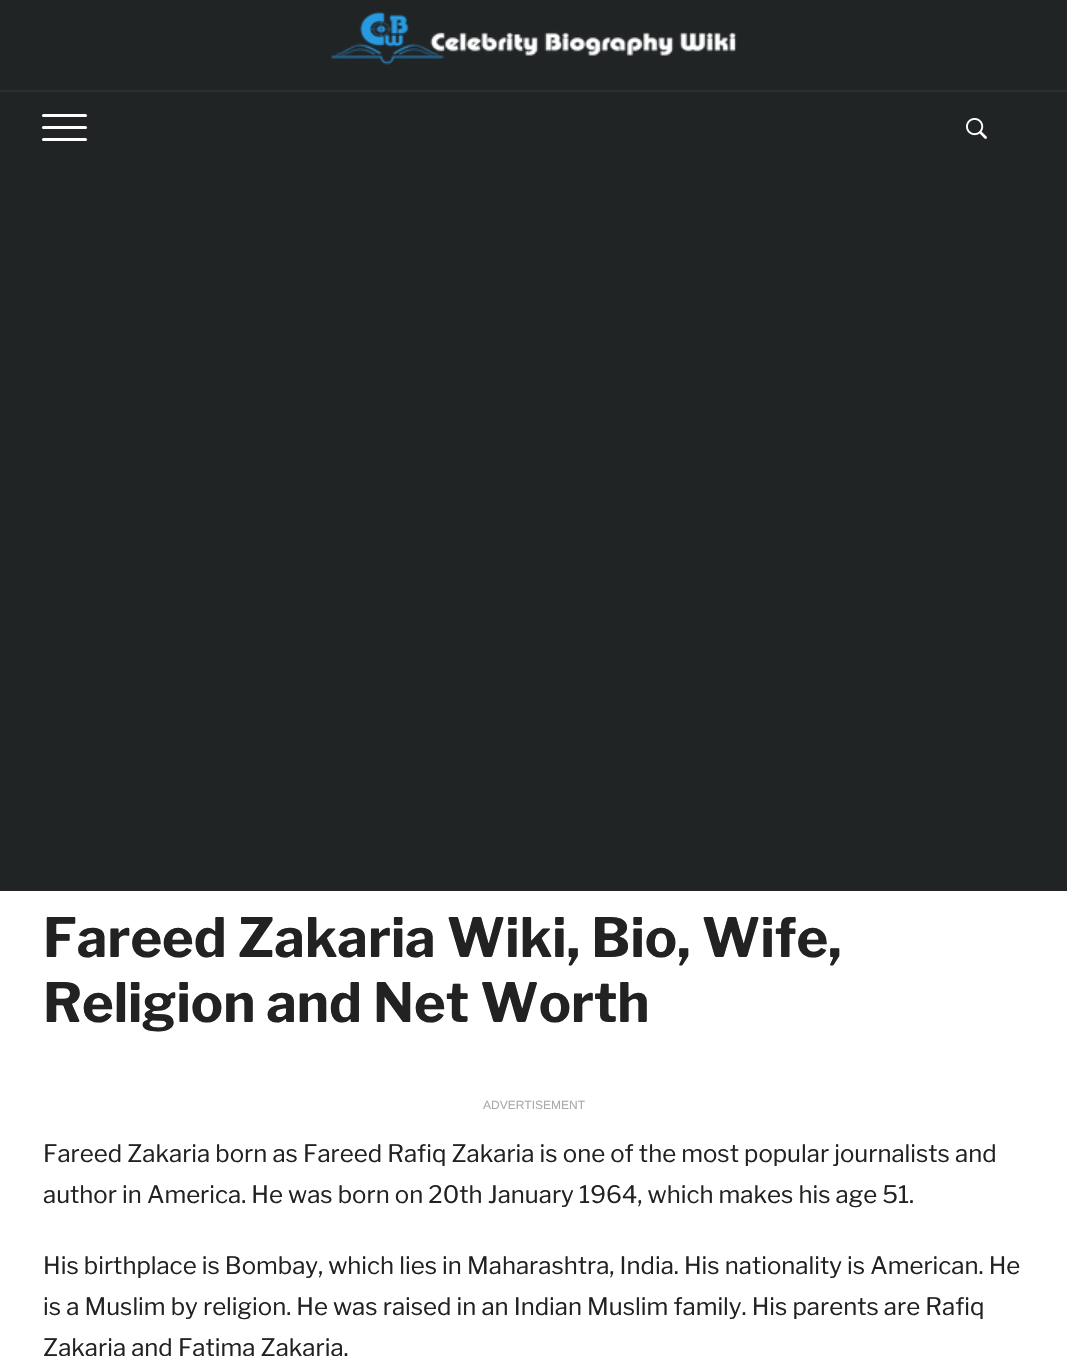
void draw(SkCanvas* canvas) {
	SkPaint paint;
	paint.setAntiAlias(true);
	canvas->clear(0xffffffff);
	paint.setColor(0xff212425);
	canvas->drawRect(SkRect::MakeXYWH(0, 0, 1067, 891), paint);
	canvas->drawImageRect(SkImages::DeferredFromEncodedData(SkData::MakeFromFileName("img1.png")), SkRect::MakeXYWH(331, 11, 406, 54), SkSamplingOptions());
	paint.setColor(0xff2c2f30);
	canvas->drawRect(SkRect::MakeXYWH(0, 90, 1067, 2), paint);
	paint.setColor(0xffffffff);
	canvas->drawRoundRect(SkRect::MakeXYWH(42, 114, 45, 3), 1.5, 1.5, paint);
	canvas->drawRoundRect(SkRect::MakeXYWH(42, 126, 45, 3), 1.5, 1.5, paint);
	canvas->drawRoundRect(SkRect::MakeXYWH(42, 138, 45, 3), 1.5, 1.5, paint);
	canvas->drawImageRect(SkImages::DeferredFromEncodedData(SkData::MakeFromFileName("img2.png")), SkRect::MakeXYWH(966, 118, 21, 21), SkSamplingOptions());
	SkFont f1(fontMgr->matchFamilyStyle("Libre Franklin", SkFontStyle::Bold()), 54);
	f1.setSubpixel(true);
	paint.setColor(0xff222222);
	canvas->drawString("Fareed Zakaria Wiki, Bio, Wife,", 43, 957, f1, paint);
	canvas->drawString("Religion and Net Worth", 43, 1022, f1, paint);
	SkFont f2(fontMgr->matchFamilyStyle("Liberation Sans", SkFontStyle::Normal()), 12);
	f2.setSubpixel(true);
	paint.setColor(0xffaaaaaa);
	canvas->drawString("ADVERTISEMENT", 483, 1109, f2, paint);
	SkFont f3(fontMgr->matchFamilyStyle("Libre Franklin", SkFontStyle::Normal()), 24);
	f3.setSubpixel(true);
	paint.setColor(0xff222222);
	canvas->drawString("Fareed Zakaria born as Fareed Rafiq Zakaria is one of the most popular journalists and", 43, 1162, f3, paint);
	canvas->drawString("author in America. He was born on 20th January 1964, which makes his age 51.", 43, 1203, f3, paint);
	canvas->drawString("His birthplace is Bombay, which lies in Maharashtra, India. His nationality is American. He", 43, 1274, f3, paint);
	canvas->drawString("is a Muslim by religion. He was raised in an Indian Muslim family. His parents are Rafiq", 43, 1315, f3, paint);
	canvas->drawString("Zakaria and Fatima Zakaria.", 43, 1356, f3, paint);
}
